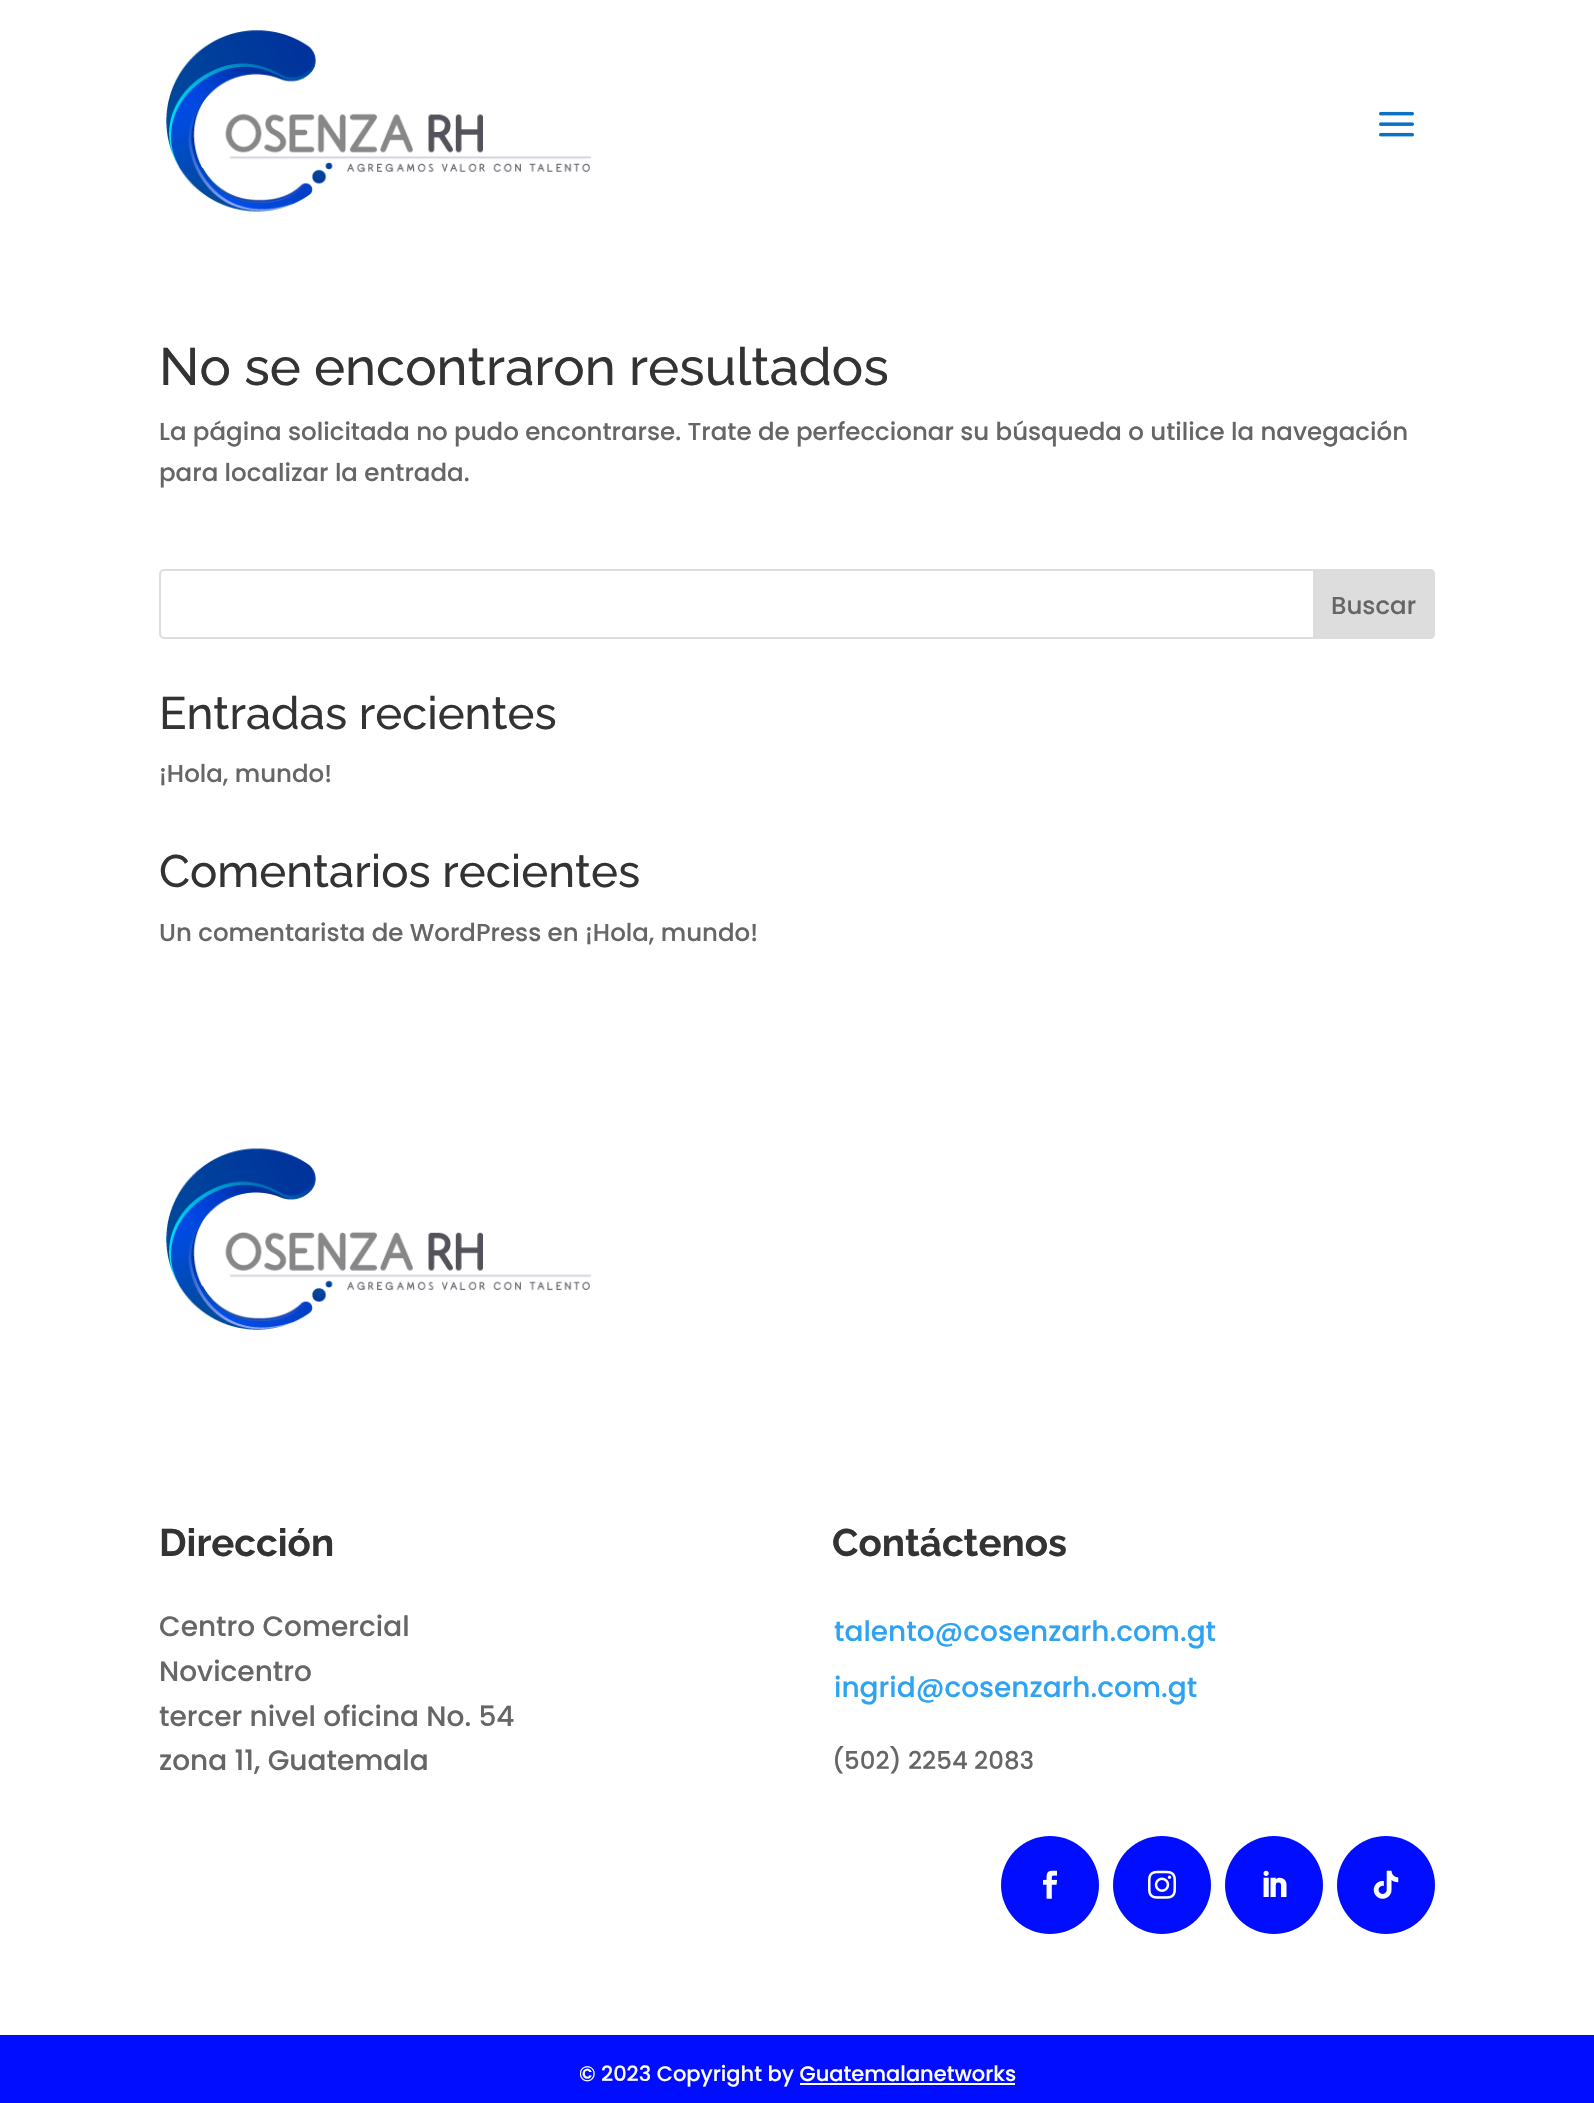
void draw(SkCanvas* canvas) {
	SkPaint paint;
	paint.setAntiAlias(true);
	auto svgPath = [&](const char* data, bool evenOdd = false) {
		SkPath result = *SkParsePath::FromSVGString(data);
		if (evenOdd) result.setFillType(SkPathFillType::kEvenOdd);
		return result;
	};
	canvas->clear(0xffffffff);
	canvas->drawImageRect(SkImages::DeferredFromEncodedData(SkData::MakeFromFileName("img1.png")), SkRect::MakeXYWH(166, 30, 426, 182), SkSamplingOptions());
	canvas->drawImageRect(SkImages::DeferredFromEncodedData(SkData::MakeFromFileName("img2.png")), SkRect::MakeXYWH(1379, 111, 35, 26), SkSamplingOptions());
	SkFont f1(fontMgr->matchFamilyStyle("Raleway", SkFontStyle(500, SkFontStyle::kNormal_Width, SkFontStyle::kUpright_Slant)), 52.5);
	f1.setSubpixel(true);
	paint.setColor(0xff333333);
	canvas->drawString("No se encontraron resultados", 159, 385, f1, paint);
	SkFont f2(fontMgr->matchFamilyStyle("Poppins", SkFontStyle(500, SkFontStyle::kNormal_Width, SkFontStyle::kUpright_Slant)), 24.5);
	f2.setSubpixel(true);
	paint.setColor(0xff666666);
	canvas->drawString("La página solicitada no pudo encontrarse. Trate de perfeccionar su búsqueda o utilice la navegación", 159, 440, f2, paint);
	canvas->drawString("para localizar la entrada.", 159, 481, f2, paint);
	paint.setStroke(true);
	paint.setStrokeWidth(2);
	paint.setColor(0xffdddddd);
	canvas->drawRoundRect(SkRect::MakeXYWH(160, 570, 1274, 68), 4, 4, paint);
	paint.setStroke(false);
	canvas->drawPath(svgPath("M1314 570H1430C1432 570 1434 572 1434 574V634C1434 636 1432 638 1430 638H1314Z"), paint);
	paint.setStroke(true);
	canvas->drawPath(svgPath("M1314 570H1430C1432 570 1434 572 1434 574V634C1434 636 1432 638 1430 638H1314Z"), paint);
	paint.setStroke(false);
	paint.setColor(0xff666666);
	canvas->drawString("Buscar", 1331, 614, f2, paint);
	SkFont f3(fontMgr->matchFamilyStyle("Raleway", SkFontStyle(500, SkFontStyle::kNormal_Width, SkFontStyle::kUpright_Slant)), 45.5);
	f3.setSubpixel(true);
	paint.setColor(0xff333333);
	canvas->drawString("Entradas recientes", 159, 729, f3, paint);
	paint.setColor(0xff666666);
	canvas->drawString("¡Hola, mundo!", 159, 782, f2, paint);
	paint.setColor(0xff333333);
	canvas->drawString("Comentarios recientes", 159, 887, f3, paint);
	paint.setColor(0xff666666);
	canvas->drawString("Un comentarista de WordPress en ¡Hola, mundo!", 159, 941, f2, paint);
	canvas->drawImageRect(SkImages::DeferredFromEncodedData(SkData::MakeFromFileName("img3.png")), SkRect::MakeXYWH(166, 1148, 426, 182), SkSamplingOptions());
	SkFont f4(fontMgr->matchFamilyStyle("Raleway", SkFontStyle::Bold()), 38.5);
	f4.setSubpixel(true);
	paint.setColor(0xff333333);
	canvas->drawString("Dirección", 159, 1556, f4, paint);
	SkFont f5(fontMgr->matchFamilyStyle("Poppins", SkFontStyle(500, SkFontStyle::kNormal_Width, SkFontStyle::kUpright_Slant)), 28);
	f5.setSubpixel(true);
	paint.setColor(0xff666666);
	canvas->drawString("Centro Comercial", 159, 1636, f5, paint);
	canvas->drawString("Novicentro", 159, 1681, f5, paint);
	canvas->drawString("tercer nivel oficina No. 54", 159, 1726, f5, paint);
	canvas->drawString("zona 11, Guatemala", 159, 1770, f5, paint);
	paint.setColor(0xff333333);
	canvas->drawString("Contáctenos", 832, 1556, f4, paint);
	paint.setColor(0xff2ea3f2);
	canvas->drawString("talento@cosenzarh.com.gt", 834, 1641, f5, paint);
	canvas->drawString("ingrid@cosenzarh.com.gt", 834, 1697, f5, paint);
	paint.setColor(0xff666666);
	canvas->drawString("(502) 2254 2083", 832, 1769, f2, paint);
	paint.setColor(0xff000dff);
	canvas->drawCircle(1050, 1885, 49, paint);
	canvas->drawImageRect(SkImages::DeferredFromEncodedData(SkData::MakeFromFileName("img4.png")), SkRect::MakeXYWH(1043, 1870, 15, 29), SkSamplingOptions());
	canvas->drawCircle(1162, 1885, 49, paint);
	canvas->drawImageRect(SkImages::DeferredFromEncodedData(SkData::MakeFromFileName("img5.png")), SkRect::MakeXYWH(1148, 1870, 28, 29), SkSamplingOptions());
	canvas->drawCircle(1274, 1885, 49, paint);
	canvas->drawImageRect(SkImages::DeferredFromEncodedData(SkData::MakeFromFileName("img6.png")), SkRect::MakeXYWH(1263, 1870, 24, 27), SkSamplingOptions());
	canvas->drawCircle(1386, 1885, 49, paint);
	canvas->drawImageRect(SkImages::DeferredFromEncodedData(SkData::MakeFromFileName("img7.png")), SkRect::MakeXYWH(1373, 1870, 26, 29), SkSamplingOptions());
	canvas->drawRect(SkRect::MakeXYWH(0, 2035, 1594, 68), paint);
	SkFont f6(fontMgr->matchFamilyStyle("Poppins", SkFontStyle(500, SkFontStyle::kNormal_Width, SkFontStyle::kUpright_Slant)), 21);
	f6.setSubpixel(true);
	paint.setColor(0xffffffff);
	canvas->drawString("© 2023 Copyright by Guatemalanetworks", 579, 2081, f6, paint);
	canvas->drawRect(SkRect::MakeXYWH(800, 2083, 215, 2), paint);
}
